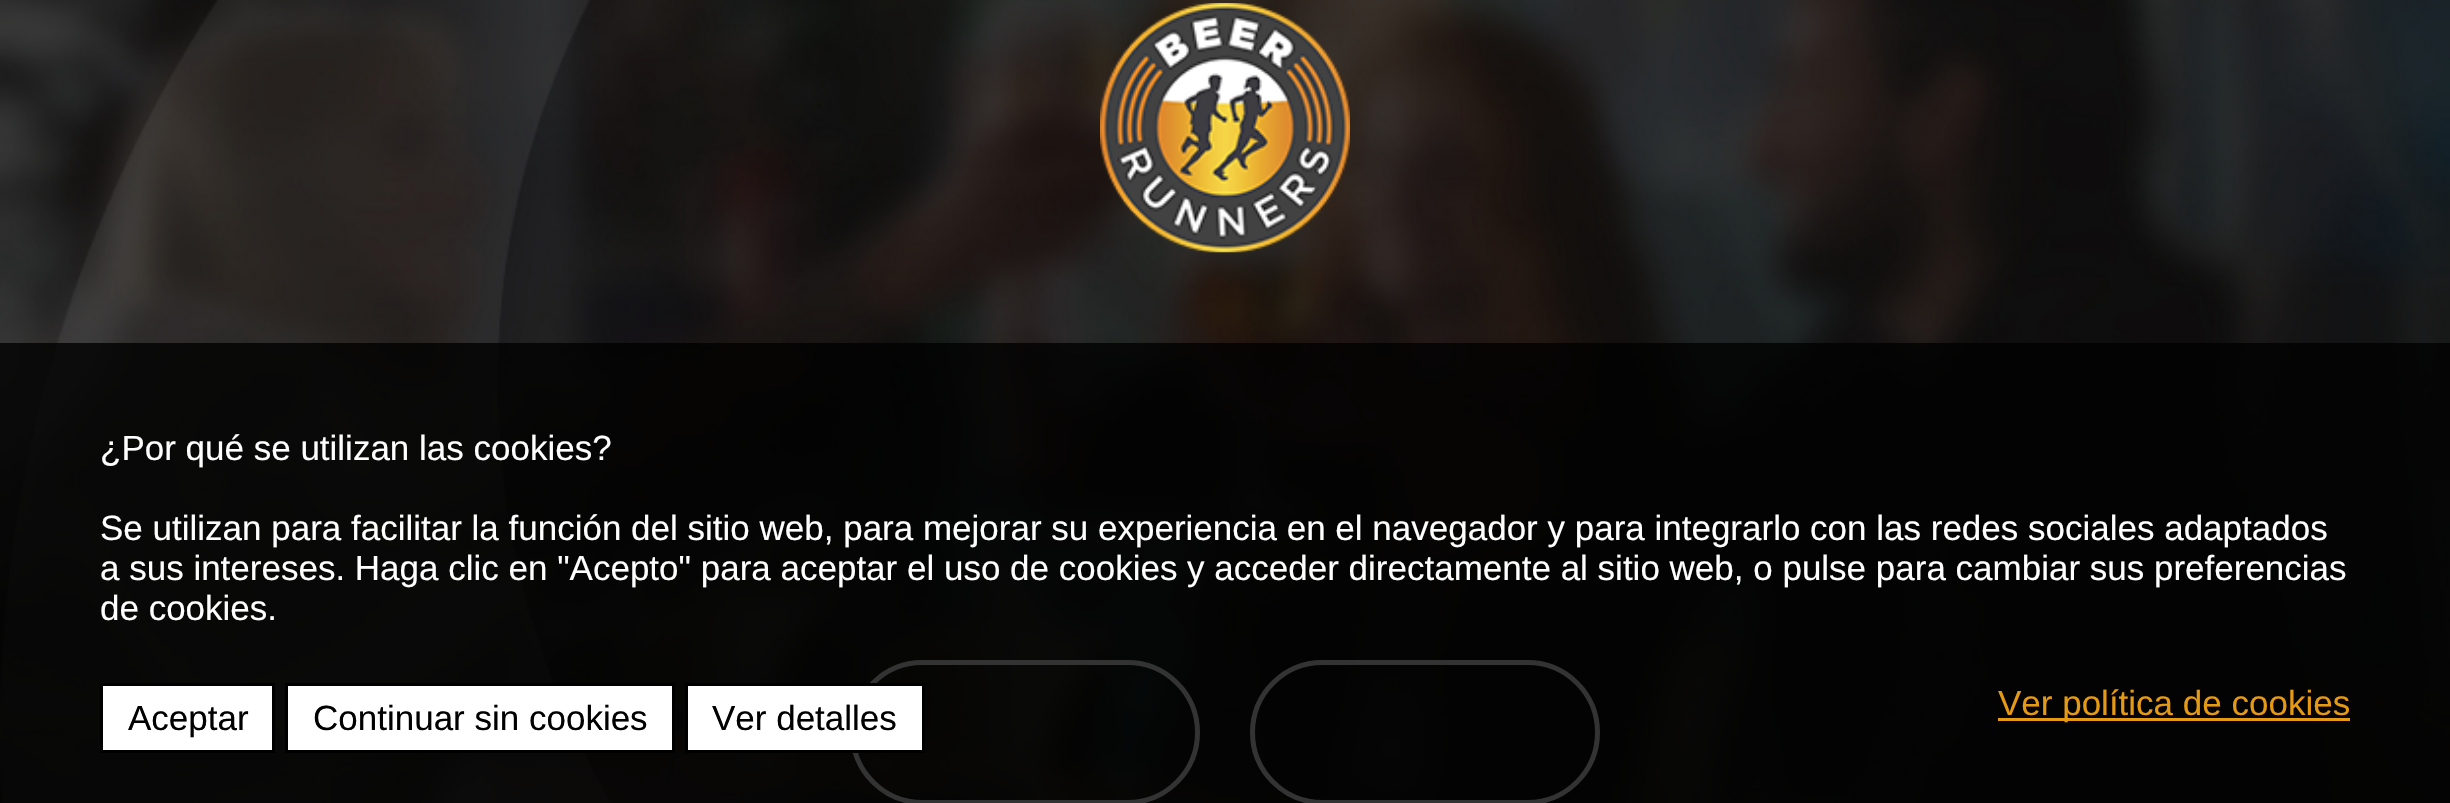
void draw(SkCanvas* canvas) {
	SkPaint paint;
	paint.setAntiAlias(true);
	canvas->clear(0xffffffff);
	canvas->drawImageRect(SkImages::DeferredFromEncodedData(SkData::MakeFromFileName("img1.png")), SkRect::MakeXYWH(0, 0, 2450, 803), SkSamplingOptions());
	canvas->drawImageRect(SkImages::DeferredFromEncodedData(SkData::MakeFromFileName("img2.png")), SkRect::MakeXYWH(1100, 3, 250, 250), SkSamplingOptions());
	paint.setStroke(true);
	paint.setStrokeWidth(5);
	paint.setColor(0xffffffff);
	canvas->drawRoundRect(SkRect::MakeXYWH(852.5, 662.5, 345, 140), 70, 70, paint);
	canvas->drawRoundRect(SkRect::MakeXYWH(1252.5, 662.5, 345, 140), 70, 70, paint);
	paint.setStroke(false);
	paint.setColor(0xcc000000);
	canvas->drawRect(SkRect::MakeXYWH(0, 343, 2450, 460), paint);
	SkFont f1(fontMgr->matchFamilyStyle("Liberation Sans", SkFontStyle::Normal()), 35);
	f1.setSubpixel(true);
	paint.setColor(0xffffffff);
	canvas->drawString("¿Por qué se utilizan las cookies?", 100, 460, f1, paint);
	canvas->drawString("Se utilizan para facilitar la función del sitio web, para mejorar su experiencia en el navegador y para integrarlo con las redes sociales adaptados", 100, 540, f1, paint);
	canvas->drawString("a sus intereses. Haga clic en \"Acepto\" para aceptar el uso de cookies y acceder directamente al sitio web, o pulse para cambiar sus preferencias", 100, 580, f1, paint);
	canvas->drawString("de cookies.", 100, 620, f1, paint);
	canvas->drawRect(SkRect::MakeXYWH(101.5, 684.5, 172, 67), paint);
	paint.setStroke(true);
	paint.setStrokeWidth(3);
	paint.setColor(0xff000000);
	canvas->drawRect(SkRect::MakeXYWH(101.5, 684.5, 172, 67), paint);
	paint.setStroke(false);
	canvas->drawString("Aceptar", 128, 730, f1, paint);
	paint.setColor(0xffffffff);
	canvas->drawRect(SkRect::MakeXYWH(286.5, 684.5, 387, 67), paint);
	paint.setStroke(true);
	paint.setColor(0xff000000);
	canvas->drawRect(SkRect::MakeXYWH(286.5, 684.5, 387, 67), paint);
	paint.setStroke(false);
	canvas->drawString("Continuar sin cookies", 313, 730, f1, paint);
	paint.setColor(0xffffffff);
	canvas->drawRect(SkRect::MakeXYWH(686.5, 684.5, 237, 67), paint);
	paint.setStroke(true);
	paint.setColor(0xff000000);
	canvas->drawRect(SkRect::MakeXYWH(686.5, 684.5, 237, 67), paint);
	paint.setStroke(false);
	canvas->drawString("Ver detalles", 712, 730, f1, paint);
	paint.setColor(0xffe69912);
	canvas->drawRect(SkRect::MakeXYWH(1998, 718, 352, 3), paint);
	canvas->drawString("Ver política de cookies", 1998, 715, f1, paint);
}
